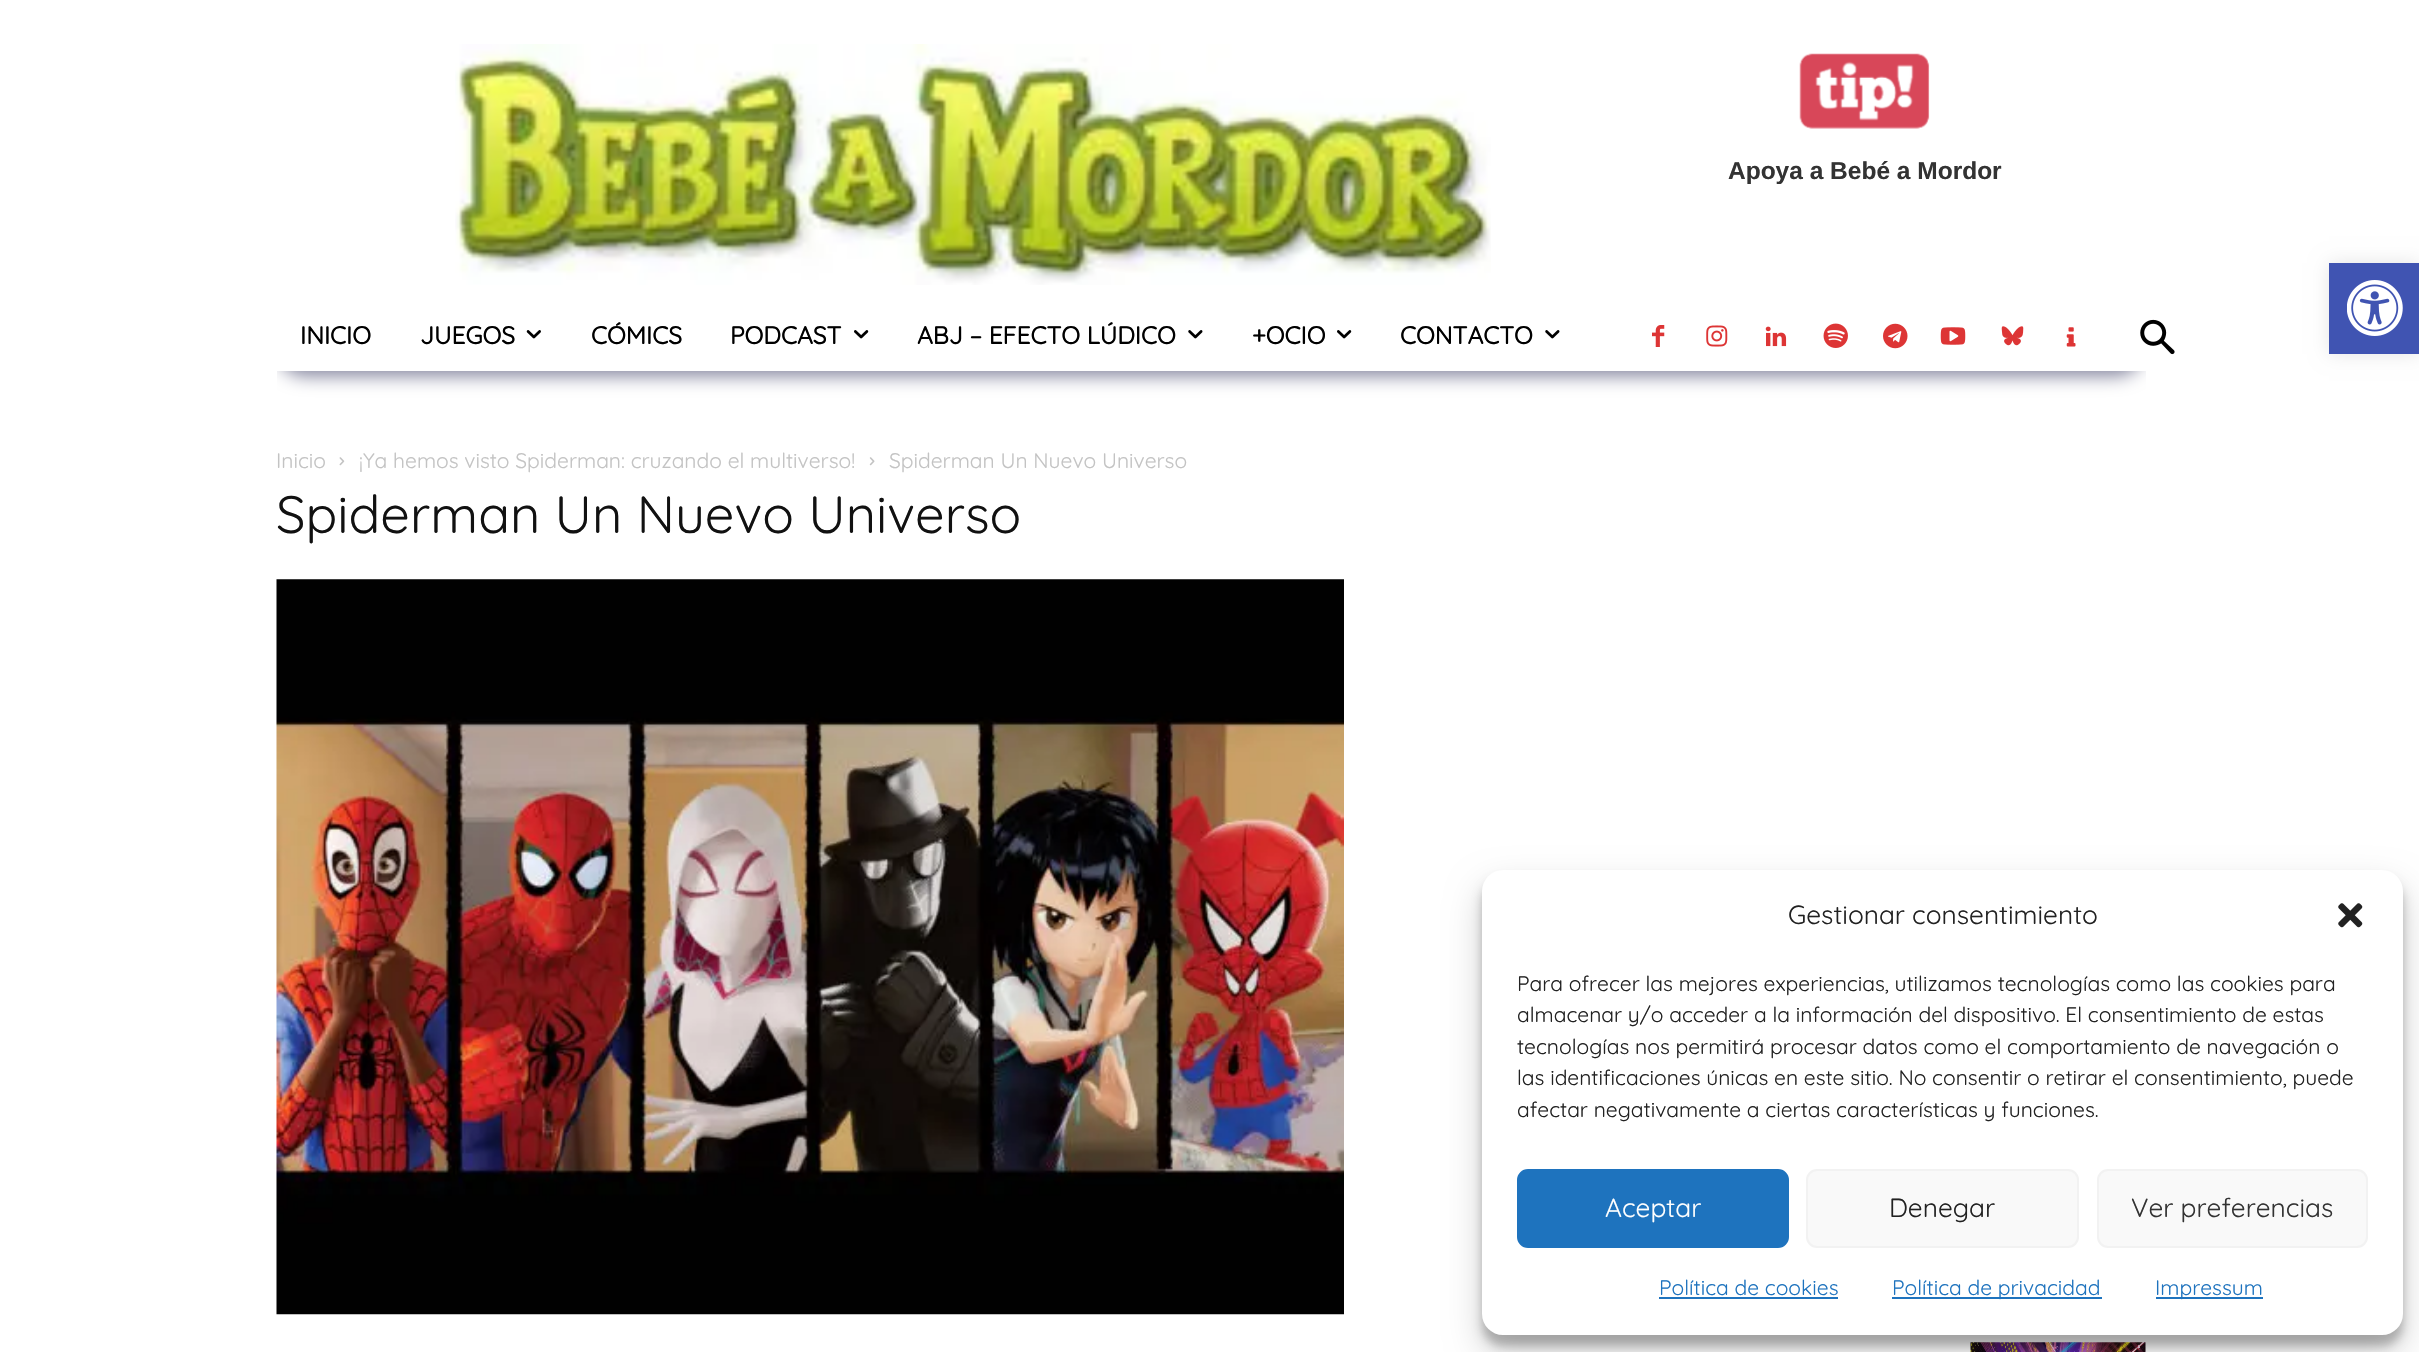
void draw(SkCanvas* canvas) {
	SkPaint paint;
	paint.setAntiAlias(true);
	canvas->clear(0xffffffff);
	canvas->drawImageRect(SkImages::DeferredFromEncodedData(SkData::MakeFromFileName("img1.png")), SkRect::MakeXYWH(455, 44, 1036, 241), SkSamplingOptions());
	canvas->drawImageRect(SkImages::DeferredFromEncodedData(SkData::MakeFromFileName("img2.png")), SkRect::MakeXYWH(1799, 53, 131, 76), SkSamplingOptions());
	SkFont f1(fontMgr->matchFamilyStyle("Liberation Sans", SkFontStyle::Bold()), 24.5);
	f1.setSubpixel(true);
	paint.setColor(0xff333333);
	canvas->drawString("Apoya a Bebé a Mordor", 1728, 179, f1, paint);
	canvas->drawImageRect(SkImages::DeferredFromEncodedData(SkData::MakeFromFileName("img6.png")), SkRect::MakeXYWH(1652, 325, 13, 22), SkSamplingOptions());
	canvas->drawImageRect(SkImages::DeferredFromEncodedData(SkData::MakeFromFileName("img7.png")), SkRect::MakeXYWH(1706, 325, 22, 22), SkSamplingOptions());
	canvas->drawImageRect(SkImages::DeferredFromEncodedData(SkData::MakeFromFileName("img8.png")), SkRect::MakeXYWH(1765, 326, 22, 21), SkSamplingOptions());
	canvas->drawImageRect(SkImages::DeferredFromEncodedData(SkData::MakeFromFileName("img9.png")), SkRect::MakeXYWH(1823, 323, 25, 25), SkSamplingOptions());
	canvas->drawImageRect(SkImages::DeferredFromEncodedData(SkData::MakeFromFileName("img10.png")), SkRect::MakeXYWH(1883, 323, 25, 26), SkSamplingOptions());
	canvas->drawImageRect(SkImages::DeferredFromEncodedData(SkData::MakeFromFileName("img11.png")), SkRect::MakeXYWH(1940, 327, 26, 18), SkSamplingOptions());
	canvas->drawImageRect(SkImages::DeferredFromEncodedData(SkData::MakeFromFileName("img12.png")), SkRect::MakeXYWH(2001, 326, 23, 20), SkSamplingOptions());
	canvas->drawImageRect(SkImages::DeferredFromEncodedData(SkData::MakeFromFileName("img13.png")), SkRect::MakeXYWH(2066, 327, 10, 20), SkSamplingOptions());
	canvas->drawImageRect(SkImages::DeferredFromEncodedData(SkData::MakeFromFileName("img14.png")), SkRect::MakeXYWH(2140, 319, 35, 36), SkSamplingOptions());
	canvas->save();
	canvas->clipRect(SkRect::MakeXYWH(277, 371, 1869, 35));
	paint.setColor(0xff84859e);
	paint.setMaskFilter(SkMaskFilter::MakeBlur(kNormal_SkBlurStyle, 9));
	canvas->drawRoundRect(SkRect::MakeXYWH(277, 319, 1867, 57), 28.5, 28.5, paint);
	paint.setMaskFilter(nullptr);
	canvas->restore();
	SkFont f2(fontMgr->matchFamilyStyle("Quicksand", SkFontStyle::Bold()), 24.5);
	f2.setSubpixel(true);
	paint.setColor(0xff000000);
	canvas->drawString("INICIO", 300, 344, f2, paint);
	canvas->drawString("JUEGOS", 420, 344, f2, paint);
	canvas->drawImageRect(SkImages::DeferredFromEncodedData(SkData::MakeFromFileName("img3.png")), SkRect::MakeXYWH(526, 330, 15, 9), SkSamplingOptions());
	canvas->drawString("CÓMICS", 591, 344, f2, paint);
	canvas->drawString("PODCAST", 730, 344, f2, paint);
	canvas->drawImageRect(SkImages::DeferredFromEncodedData(SkData::MakeFromFileName("img4.png")), SkRect::MakeXYWH(854, 330, 15, 9), SkSamplingOptions());
	canvas->drawString("ABJ – EFECTO LÚDICO", 917, 344, f2, paint);
	canvas->drawImageRect(SkImages::DeferredFromEncodedData(SkData::MakeFromFileName("img5.png")), SkRect::MakeXYWH(1188, 330, 15, 9), SkSamplingOptions());
	canvas->drawString("+OCIO", 1252, 344, f2, paint);
	canvas->drawImageRect(SkImages::DeferredFromEncodedData(SkData::MakeFromFileName("img4.png")), SkRect::MakeXYWH(1337, 330, 15, 9), SkSamplingOptions());
	canvas->drawString("CONTACTO", 1400, 344, f2, paint);
	canvas->drawImageRect(SkImages::DeferredFromEncodedData(SkData::MakeFromFileName("img5.png")), SkRect::MakeXYWH(1545, 330, 15, 9), SkSamplingOptions());
	SkFont f3(fontMgr->matchFamilyStyle("Quicksand", SkFontStyle(300, SkFontStyle::kNormal_Width, SkFontStyle::kUpright_Slant)), 21);
	f3.setSubpixel(true);
	paint.setColor(0xffc3c3c3);
	canvas->drawString("Inicio", 276, 468, f3, paint);
	canvas->drawImageRect(SkImages::DeferredFromEncodedData(SkData::MakeFromFileName("img15.png")), SkRect::MakeXYWH(339, 457, 6, 9), SkSamplingOptions());
	canvas->drawString("¡Ya hemos visto Spiderman: cruzando el multiverso!", 359, 468, f3, paint);
	canvas->drawImageRect(SkImages::DeferredFromEncodedData(SkData::MakeFromFileName("img16.png")), SkRect::MakeXYWH(869, 457, 6, 9), SkSamplingOptions());
	canvas->drawString("Spiderman Un Nuevo Universo", 889, 468, f3, paint);
	SkFont f4(fontMgr->matchFamilyStyle("Quicksand", SkFontStyle(300, SkFontStyle::kNormal_Width, SkFontStyle::kUpright_Slant)), 52.5);
	f4.setSubpixel(true);
	paint.setColor(0xff111111);
	canvas->drawString("Spiderman Un Nuevo Universo", 276, 533, f4, paint);
	canvas->drawImageRect(SkImages::DeferredFromEncodedData(SkData::MakeFromFileName("img17.png")), SkRect::MakeXYWH(276, 579, 1068, 736), SkSamplingOptions());
	canvas->drawImageRect(SkImages::DeferredFromEncodedData(SkData::MakeFromFileName("img18.png")), SkRect::MakeXYWH(1970, 1342, 176, 10), SkSamplingOptions());
	paint.setColor(0x1a000000);
	paint.setMaskFilter(SkMaskFilter::MakeBlur(kNormal_SkBlurStyle, 9));
	canvas->drawRect(SkRect::MakeXYWH(2329, 263, 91, 91), paint);
	paint.setMaskFilter(nullptr);
	paint.setColor(0xff4054b2);
	canvas->drawRect(SkRect::MakeXYWH(2329, 263, 90, 91), paint);
	canvas->drawImageRect(SkImages::DeferredFromEncodedData(SkData::MakeFromFileName("img19.png")), SkRect::MakeXYWH(2347, 280, 56, 56), SkSamplingOptions());
	paint.setColor(0x3b000000);
	paint.setMaskFilter(SkMaskFilter::MakeBlur(kNormal_SkBlurStyle, 5));
	canvas->drawRoundRect(SkRect::MakeXYWH(1482, 880, 921, 466), 21, 21, paint);
	paint.setMaskFilter(nullptr);
	paint.setColor(0x30000000);
	paint.setMaskFilter(SkMaskFilter::MakeBlur(kNormal_SkBlurStyle, 17.5));
	canvas->drawRoundRect(SkRect::MakeXYWH(1482, 887, 921, 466), 21, 21, paint);
	paint.setMaskFilter(nullptr);
	paint.setColor(0xffffffff);
	canvas->drawRoundRect(SkRect::MakeXYWH(1482, 870, 921, 465), 21, 21, paint);
	SkFont f5(fontMgr->matchFamilyStyle("Quicksand", SkFontStyle(300, SkFontStyle::kNormal_Width, SkFontStyle::kUpright_Slant)), 26.25);
	f5.setSubpixel(true);
	paint.setColor(0xff222222);
	canvas->drawString("Gestionar consentimiento", 1788, 924, f5, paint);
	canvas->drawImageRect(SkImages::DeferredFromEncodedData(SkData::MakeFromFileName("img20.png")), SkRect::MakeXYWH(2338, 903, 25, 25), SkSamplingOptions());
	canvas->drawString("Para ofrecer las mejores experiencias, utilizamos tecnologías como las cookies para", 1517, 991, f3, paint);
	canvas->drawString("almacenar y/o acceder a la información del dispositivo. El consentimiento de estas", 1517, 1022, f3, paint);
	canvas->drawString("tecnologías nos permitirá procesar datos como el comportamiento de navegación o", 1517, 1054, f3, paint);
	canvas->drawString("las identificaciones únicas en este sitio. No consentir o retirar el consentimiento, puede", 1517, 1085, f3, paint);
	canvas->drawString("afectar negativamente a ciertas características y funciones.", 1517, 1117, f3, paint);
	paint.setColor(0xff1e73be);
	canvas->drawRoundRect(SkRect::MakeXYWH(1518, 1170, 270, 77), 10, 10, paint);
	paint.setStroke(true);
	paint.setStrokeWidth(2);
	canvas->drawRoundRect(SkRect::MakeXYWH(1518, 1170, 270, 77), 10, 10, paint);
	paint.setStroke(false);
	paint.setColor(0xffffffff);
	canvas->drawString("Aceptar", 1605, 1217, f5, paint);
	paint.setColor(0xfff9f9f9);
	canvas->drawRoundRect(SkRect::MakeXYWH(1807, 1170, 271, 77), 10, 10, paint);
	paint.setStroke(true);
	paint.setColor(0xfff2f2f2);
	canvas->drawRoundRect(SkRect::MakeXYWH(1807, 1170, 271, 77), 10, 10, paint);
	paint.setStroke(false);
	paint.setColor(0xff222222);
	canvas->drawString("Denegar", 1889, 1217, f5, paint);
	paint.setColor(0xfff9f9f9);
	canvas->drawRoundRect(SkRect::MakeXYWH(2098, 1170, 269, 77), 10, 10, paint);
	paint.setStroke(true);
	paint.setColor(0xfff2f2f2);
	canvas->drawRoundRect(SkRect::MakeXYWH(2098, 1170, 269, 77), 10, 10, paint);
	paint.setStroke(false);
	paint.setColor(0xff333333);
	canvas->drawString("Ver preferencias", 2131, 1217, f5, paint);
	paint.setColor(0xff1e73be);
	canvas->drawString("Política de cookies", 1659, 1295, f3, paint);
	canvas->drawRect(SkRect::MakeXYWH(1659, 1297, 179, 2), paint);
	canvas->drawRect(SkRect::MakeXYWH(1892, 1297, 210, 2), paint);
	canvas->drawString("Política de privacidad", 1892, 1295, f3, paint);
	canvas->drawRect(SkRect::MakeXYWH(2156, 1297, 107, 2), paint);
	canvas->drawString("Impressum", 2155, 1295, f3, paint);
}
